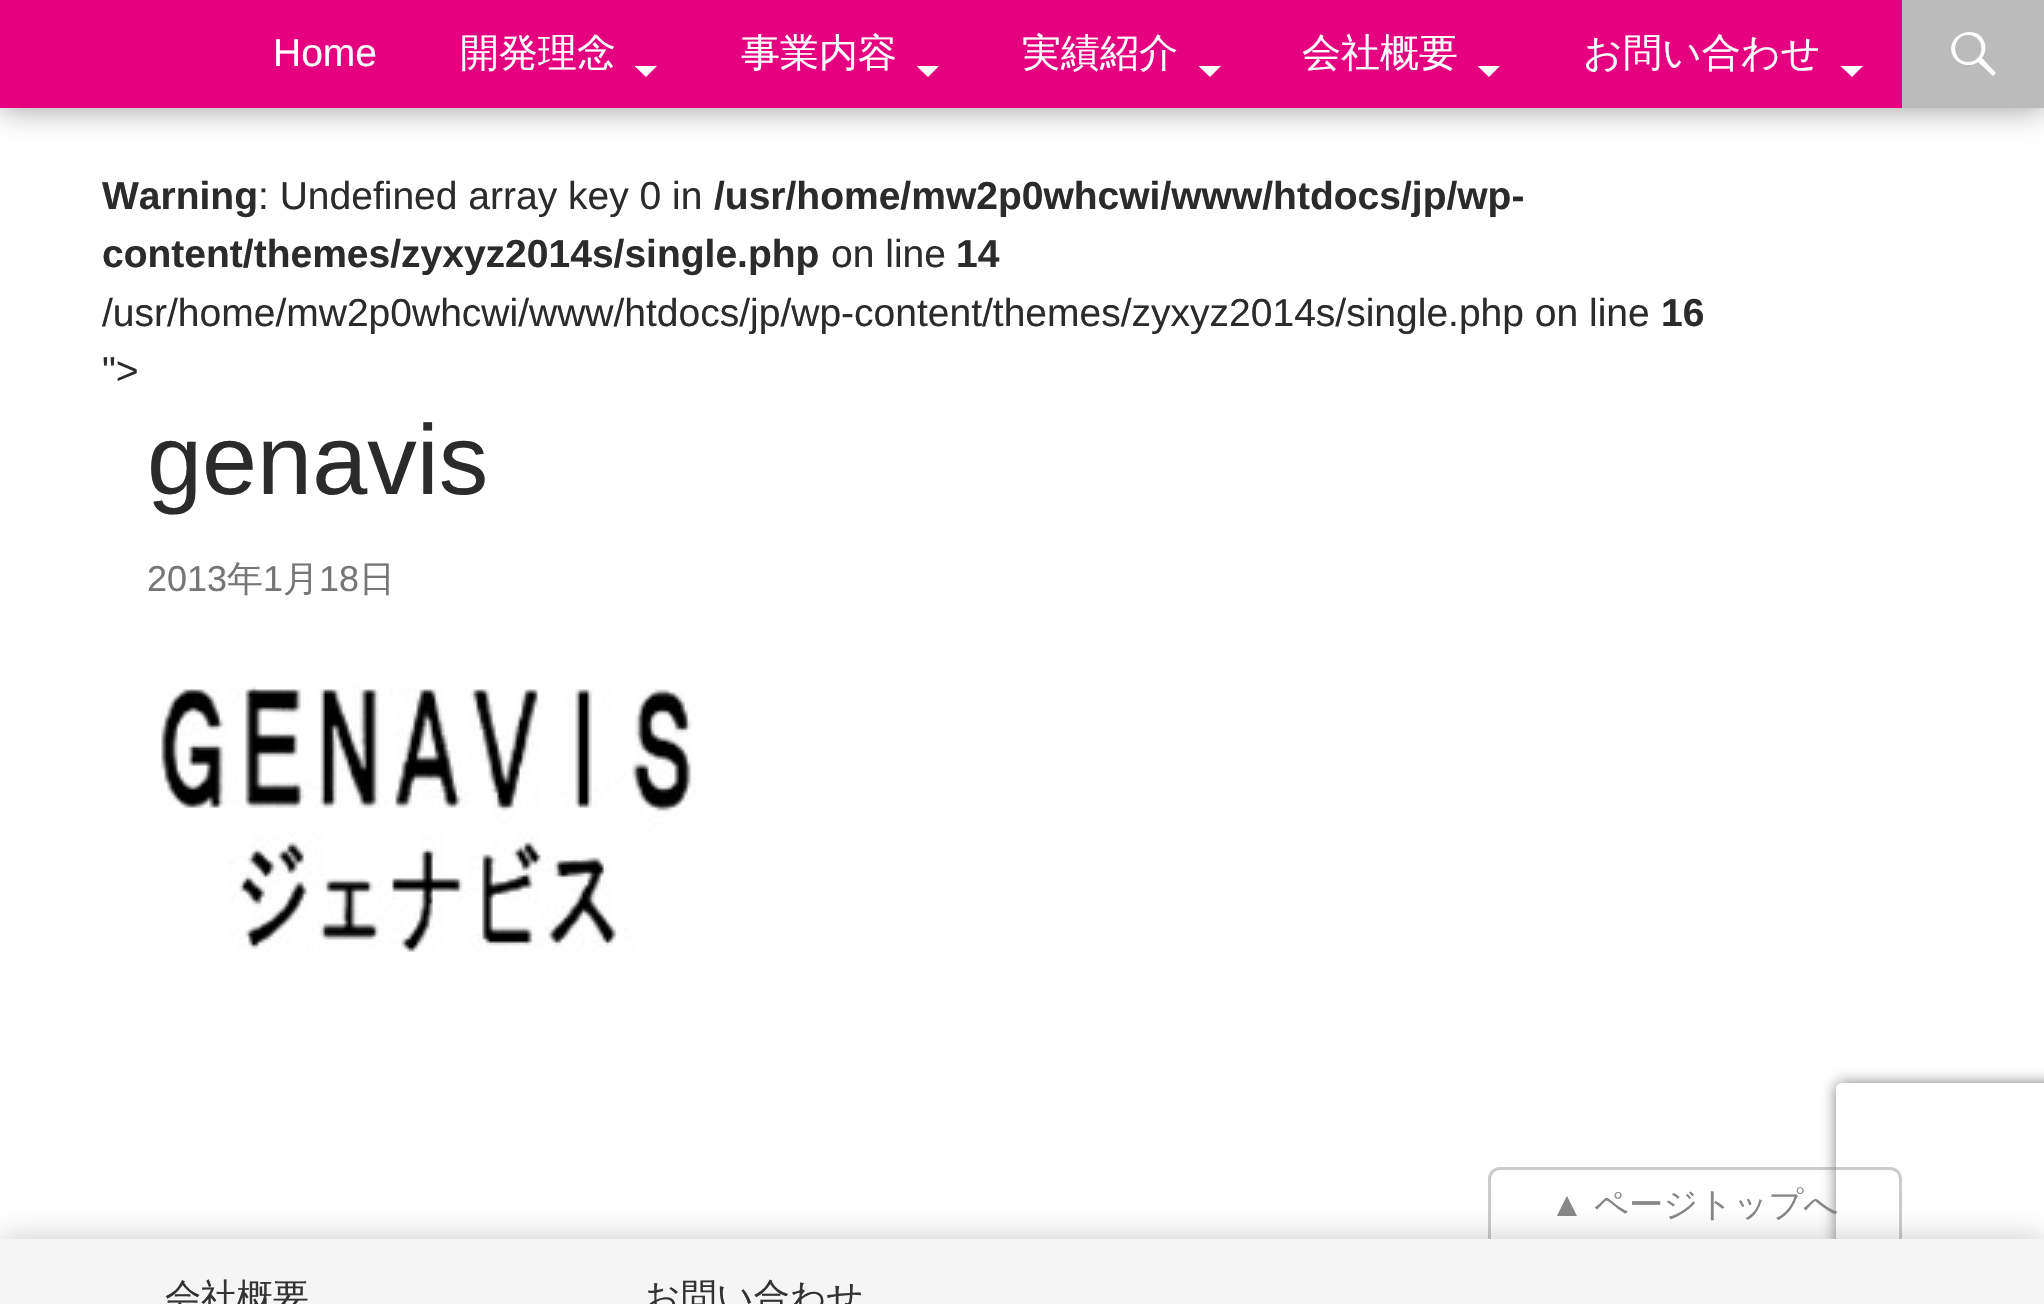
void draw(SkCanvas* canvas) {
	SkPaint paint;
	paint.setAntiAlias(true);
	auto svgPath = [&](const char* data, bool evenOdd = false) {
		SkPath result = *SkParsePath::FromSVGString(data);
		if (evenOdd) result.setFillType(SkPathFillType::kEvenOdd);
		return result;
	};
	canvas->clear(0xffffffff);
	paint.setColor(0x66000000);
	paint.setMaskFilter(SkMaskFilter::MakeBlur(kNormal_SkBlurStyle, 15));
	canvas->drawRect(SkRect::MakeXYWH(0, 0, 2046, 108), paint);
	paint.setMaskFilter(nullptr);
	paint.setColor(0xffe4007f);
	canvas->drawRect(SkRect::MakeXYWH(0, 0, 1902, 108), paint);
	SkFont f1(fontMgr->matchFamilyStyle("Liberation Sans", SkFontStyle::Normal()), 39);
	f1.setSubpixel(true);
	paint.setColor(0xffffffff);
	canvas->drawString("Home", 273, 66, f1, paint);
	SkFont f2(fontMgr->matchFamilyStyle("WenQuanYi Zen Hei", SkFontStyle(500, SkFontStyle::kNormal_Width, SkFontStyle::kUpright_Slant)), 39);
	f2.setSubpixel(true);
	canvas->drawString("開発理念", 460, 66, f2, paint);
	canvas->drawPath(svgPath("M634.5 66L646 77L657 66Z"), paint);
	canvas->drawString("事業内容", 741, 66, f2, paint);
	canvas->drawPath(svgPath("M916.5 66L928 77L939 66Z"), paint);
	canvas->drawString("実績紹介", 1022, 66, f2, paint);
	canvas->drawPath(svgPath("M1198.5 66L1210 77L1221 66Z"), paint);
	canvas->drawString("会社概要", 1302, 66, f2, paint);
	canvas->drawPath(svgPath("M1477.5 66L1489 77L1500 66Z"), paint);
	canvas->drawString("お問い合わせ", 1583, 66, f2, paint);
	canvas->drawPath(svgPath("M1840.5 66L1852 77L1863 66Z"), paint);
	paint.setColor(0xffbbbbbb);
	canvas->drawRect(SkRect::MakeXYWH(1902, 0, 142, 108), paint);
	paint.setColor(0xffffffff);
	canvas->drawPath(svgPath("M1996 73L1993 76L1978 62C1970 68 1958 65 1953 56C1943 34 1979 21 1985 44C1986 49 1985 54 1982 58ZM1968 62C1986 62 1986 35 1968 35C1951 35 1951 62 1968 62Z"), paint);
	SkFont f3(fontMgr->matchFamilyStyle("Liberation Sans", SkFontStyle::Bold()), 39);
	f3.setSubpixel(true);
	paint.setColor(0xff2b2b2b);
	canvas->drawString("Warning", 102, 209, f3, paint);
	canvas->drawString(": Undefined array key 0 in", 258, 209, f1, paint);
	canvas->drawString("/usr/home/mw2p0whcwi/www/htdocs/jp/wp-", 714, 209, f3, paint);
	canvas->drawString("content/themes/zyxyz2014s/single.php", 102, 267, f3, paint);
	canvas->drawString("on line", 831, 267, f1, paint);
	canvas->drawString("14", 956, 267, f3, paint);
	canvas->drawString("/usr/home/mw2p0whcwi/www/htdocs/jp/wp-content/themes/zyxyz2014s/single.php on line", 102, 326, f1, paint);
	canvas->drawString("16", 1661, 326, f3, paint);
	canvas->drawString("\">", 102, 384, f1, paint);
	SkFont f4(fontMgr->matchFamilyStyle("Liberation Sans", SkFontStyle::Normal()), 99);
	f4.setSubpixel(true);
	canvas->drawString("genavis", 147, 494, f4, paint);
	SkFont f5(fontMgr->matchFamilyStyle("Liberation Sans", SkFontStyle::Normal()), 36);
	f5.setSubpixel(true);
	paint.setColor(0xff767676);
	canvas->drawString("2013", 147, 591, f5, paint);
	SkFont f6(fontMgr->matchFamilyStyle("WenQuanYi Zen Hei", SkFontStyle(500, SkFontStyle::kNormal_Width, SkFontStyle::kUpright_Slant)), 36);
	f6.setSubpixel(true);
	canvas->drawString("年", 227, 591, f6, paint);
	canvas->drawString("1", 263, 591, f5, paint);
	canvas->drawString("月", 283, 591, f6, paint);
	canvas->drawString("18", 319, 591, f5, paint);
	canvas->drawString("日", 359, 591, f6, paint);
	canvas->drawImageRect(SkImages::DeferredFromEncodedData(SkData::MakeFromFileName("img1.png")), SkRect::MakeXYWH(159, 686, 537, 266), SkSamplingOptions());
	paint.setStroke(true);
	paint.setStrokeWidth(3);
	paint.setColor(0xffcccccc);
	canvas->drawPath(svgPath("M1500 1168.5H1890C1896 1168.5 1900.5 1173 1900.5 1179V1252.5H1489.5V1179C1489.5 1173 1494 1168.5 1500 1168.5Z"), paint);
	SkFont f7(fontMgr->matchFamilyStyle("Liberation Sans", SkFontStyle::Normal()), 34.25);
	f7.setSubpixel(true);
	paint.setStroke(false);
	paint.setColor(0xff888888);
	canvas->drawString("▲", 1550, 1216, f7, paint);
	SkFont f8(fontMgr->matchFamilyStyle("WenQuanYi Zen Hei", SkFontStyle(500, SkFontStyle::kNormal_Width, SkFontStyle::kUpright_Slant)), 34.25);
	f8.setSubpixel(true);
	canvas->drawString("ページトップへ", 1594, 1216, f8, paint);
	paint.setColor(0x33000000);
	paint.setMaskFilter(SkMaskFilter::MakeBlur(kNormal_SkBlurStyle, 15));
	canvas->drawRect(SkRect::MakeXYWH(0, 1239, 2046, 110), paint);
	paint.setMaskFilter(nullptr);
	canvas->save();
	canvas->clipPath(svgPath("M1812 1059H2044V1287H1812ZM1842 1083H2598C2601.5 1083 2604 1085.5 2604 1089V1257C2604 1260.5 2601.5 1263 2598 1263H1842C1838.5 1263 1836 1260.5 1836 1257V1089C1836 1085.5 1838.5 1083 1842 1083Z", true), true);
	paint.setColor(0xff808080);
	paint.setMaskFilter(SkMaskFilter::MakeBlur(kNormal_SkBlurStyle, 7.5));
	canvas->drawRoundRect(SkRect::MakeXYWH(1836, 1083, 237, 180), 6, 6, paint);
	paint.setMaskFilter(nullptr);
	canvas->restore();
	paint.setColor(0xfff5f5f5);
	canvas->drawRect(SkRect::MakeXYWH(0, 1239, 2044, 65), paint);
	paint.setColor(0xff333333);
	canvas->drawString("会社概要", 165, 1309, f6, paint);
	canvas->drawString("お問い合わせ", 644, 1309, f6, paint);
}
